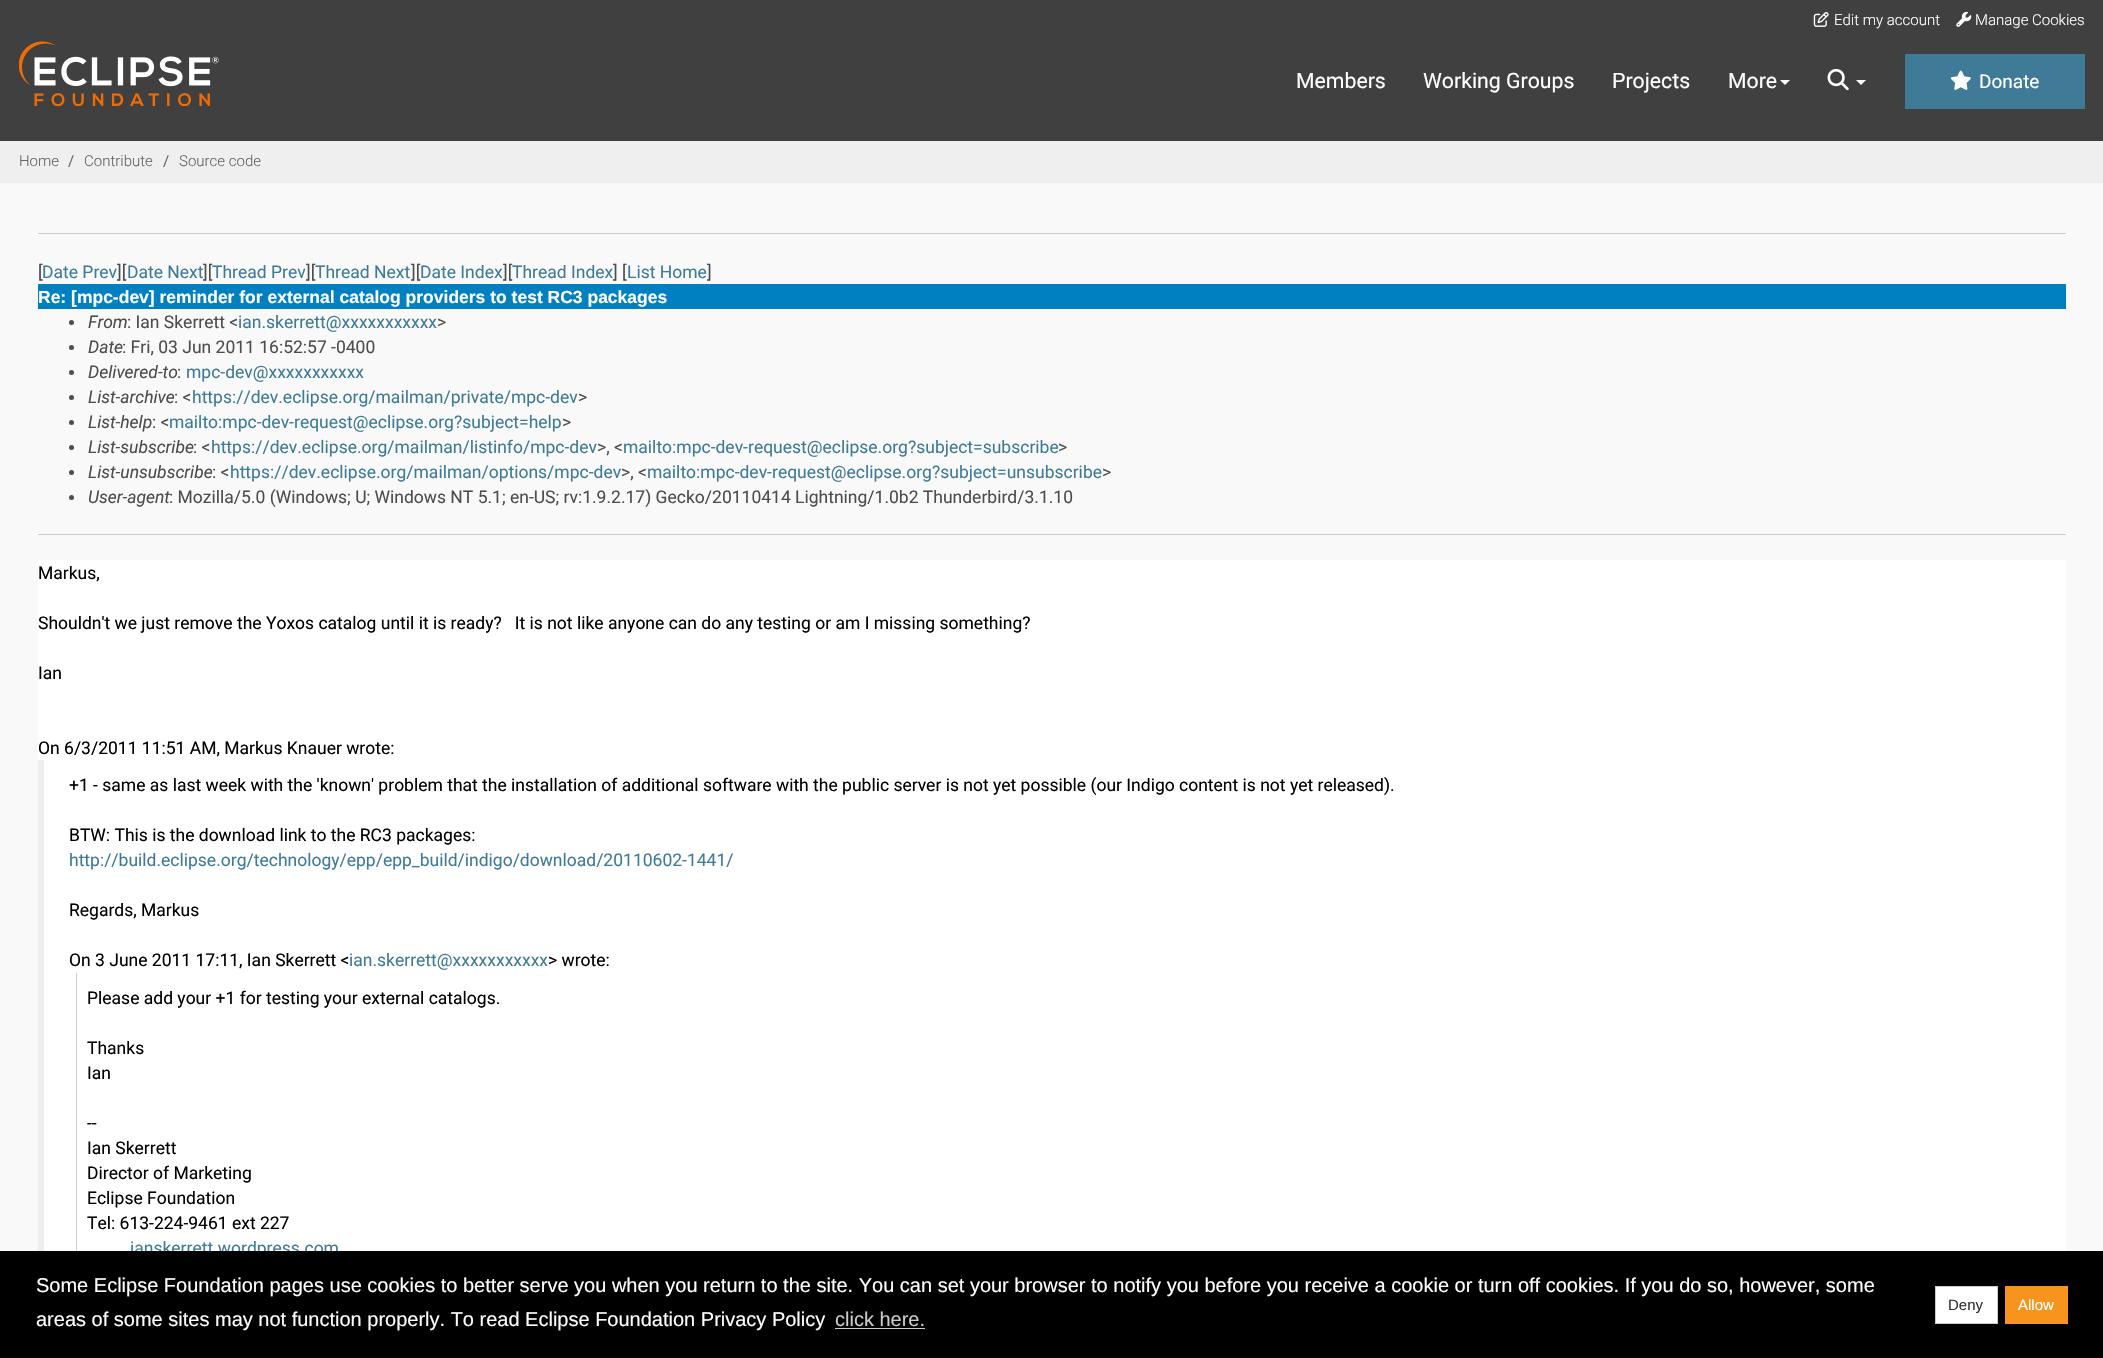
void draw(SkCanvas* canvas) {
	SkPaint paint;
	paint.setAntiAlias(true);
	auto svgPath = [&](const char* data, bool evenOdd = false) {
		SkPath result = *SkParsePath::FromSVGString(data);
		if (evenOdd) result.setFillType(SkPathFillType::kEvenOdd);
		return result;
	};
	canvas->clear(0xfff9f9f9);
	paint.setColor(0xff404040);
	canvas->drawRect(SkRect::MakeXYWH(0, 0, 2103, 141), paint);
	canvas->drawImageRect(SkImages::DeferredFromEncodedData(SkData::MakeFromFileName("img1.png")), SkRect::MakeXYWH(1813, 12, 16, 15), SkSamplingOptions());
	SkFont f1(fontMgr->matchFamilyStyle("Roboto", SkFontStyle(300, SkFontStyle::kNormal_Width, SkFontStyle::kUpright_Slant)), 15);
	f1.setSubpixel(true);
	paint.setColor(0xffffffff);
	canvas->drawString("Edit my account", 1834, 25, f1, paint);
	canvas->drawImageRect(SkImages::DeferredFromEncodedData(SkData::MakeFromFileName("img2.png")), SkRect::MakeXYWH(1956, 11, 16, 16), SkSamplingOptions());
	canvas->drawString("Manage Cookies", 1975, 25, f1, paint);
	canvas->drawImageRect(SkImages::DeferredFromEncodedData(SkData::MakeFromFileName("img3.png")), SkRect::MakeXYWH(19, 41, 200, 65), SkSamplingOptions());
	SkFont f2(fontMgr->matchFamilyStyle("Roboto", SkFontStyle::Normal()), 21.25);
	f2.setSubpixel(true);
	canvas->drawString("Members", 1296, 88, f2, paint);
	canvas->drawString("Working Groups", 1423, 88, f2, paint);
	canvas->drawString("Projects", 1612, 88, f2, paint);
	canvas->drawString("More", 1728, 88, f2, paint);
	canvas->drawPath(svgPath("M1780 80H1790L1785 85Z"), paint);
	canvas->drawImageRect(SkImages::DeferredFromEncodedData(SkData::MakeFromFileName("img4.png")), SkRect::MakeXYWH(1827, 68, 22, 23), SkSamplingOptions());
	canvas->drawPath(svgPath("M1856 80H1866L1861 85Z"), paint);
	paint.setColor(0xff3f7b96);
	canvas->drawRect(SkRect::MakeXYWH(1905, 54, 180, 55), paint);
	canvas->drawImageRect(SkImages::DeferredFromEncodedData(SkData::MakeFromFileName("img5.png")), SkRect::MakeXYWH(1950, 70, 21, 20), SkSamplingOptions());
	SkFont f3(fontMgr->matchFamilyStyle("Roboto", SkFontStyle::Normal()), 19);
	f3.setSubpixel(true);
	paint.setColor(0xffffffff);
	canvas->drawString("Donate", 1979, 88, f3, paint);
	paint.setColor(0xffefefef);
	canvas->drawRect(SkRect::MakeXYWH(0, 141, 2103, 42), paint);
	paint.setColor(0xff656668);
	canvas->drawString("Home", 19, 166, f1, paint);
	SkFont f4(fontMgr->matchFamilyStyle("Roboto", SkFontStyle::Normal()), 15);
	f4.setSubpixel(true);
	canvas->drawString("/", 68, 166, f4, paint);
	canvas->drawString("Contribute", 84, 166, f1, paint);
	canvas->drawString("/", 163, 166, f4, paint);
	canvas->drawString("Source code", 179, 166, f1, paint);
	paint.setColor(0xffcccccc);
	canvas->drawRect(SkRect::MakeXYWH(38, 233, 2028, 1), paint);
	SkFont f5(fontMgr->matchFamilyStyle("Roboto", SkFontStyle::Normal()), 17.5);
	f5.setSubpixel(true);
	paint.setColor(0xff4c4d4e);
	canvas->drawString("[", 38, 278, f5, paint);
	paint.setColor(0xff3f7b96);
	canvas->drawString("Date Prev", 42, 278, f5, paint);
	paint.setColor(0xff4c4d4e);
	canvas->drawString("][", 117, 278, f5, paint);
	paint.setColor(0xff3f7b96);
	canvas->drawString("Date Next", 127, 278, f5, paint);
	paint.setColor(0xff4c4d4e);
	canvas->drawString("][", 203, 278, f5, paint);
	paint.setColor(0xff3f7b96);
	canvas->drawString("Thread Prev", 212, 278, f5, paint);
	paint.setColor(0xff4c4d4e);
	canvas->drawString("][", 306, 278, f5, paint);
	paint.setColor(0xff3f7b96);
	canvas->drawString("Thread Next", 315, 278, f5, paint);
	paint.setColor(0xff4c4d4e);
	canvas->drawString("][", 411, 278, f5, paint);
	paint.setColor(0xff3f7b96);
	canvas->drawString("Date Index", 420, 278, f5, paint);
	paint.setColor(0xff4c4d4e);
	canvas->drawString("][", 503, 278, f5, paint);
	paint.setColor(0xff3f7b96);
	canvas->drawString("Thread Index", 512, 278, f5, paint);
	paint.setColor(0xff4c4d4e);
	canvas->drawString("] [", 613, 278, f5, paint);
	paint.setColor(0xff3f7b96);
	canvas->drawString("List Home", 627, 278, f5, paint);
	paint.setColor(0xff4c4d4e);
	canvas->drawString("]", 707, 278, f5, paint);
	paint.setColor(0xff0080c0);
	canvas->drawRect(SkRect::MakeXYWH(38, 284, 2028, 25), paint);
	SkFont f6(fontMgr->matchFamilyStyle("Liberation Sans", SkFontStyle::Bold()), 17.5);
	f6.setSubpixel(true);
	paint.setColor(0xffffffff);
	canvas->drawString("Re: [mpc-dev] reminder for external catalog providers to test RC3 packages", 38, 303, f6, paint);
	paint.setColor(0xff4c4d4e);
	canvas->drawCircle(71.5, 322.5, 2.5, paint);
	SkFont f7(fontMgr->matchFamilyStyle("Roboto", SkFontStyle::Italic()), 17.5);
	f7.setSubpixel(true);
	canvas->drawString("From", 88, 328, f7, paint);
	canvas->drawString(": Ian Skerrett <", 127, 328, f5, paint);
	paint.setColor(0xff3f7b96);
	canvas->drawString("ian.skerrett@xxxxxxxxxxx", 238, 328, f5, paint);
	paint.setColor(0xff4c4d4e);
	canvas->drawString(">", 437, 328, f5, paint);
	canvas->drawCircle(71.5, 347.5, 2.5, paint);
	canvas->drawString("Date", 88, 353, f7, paint);
	canvas->drawString(": Fri, 03 Jun 2011 16:52:57 -0400", 122, 353, f5, paint);
	canvas->drawCircle(71.5, 372.5, 2.5, paint);
	canvas->drawString("Delivered-to", 88, 378, f7, paint);
	canvas->drawString(":", 177, 378, f5, paint);
	paint.setColor(0xff3f7b96);
	canvas->drawString("mpc-dev@xxxxxxxxxxx", 186, 378, f5, paint);
	paint.setColor(0xff4c4d4e);
	canvas->drawCircle(71.5, 397.5, 2.5, paint);
	canvas->drawString("List-archive", 88, 403, f7, paint);
	canvas->drawString(": <", 174, 403, f5, paint);
	paint.setColor(0xff3f7b96);
	canvas->drawString("https://dev.eclipse.org/mailman/private/mpc-dev", 192, 403, f5, paint);
	paint.setColor(0xff4c4d4e);
	canvas->drawString(">", 578, 403, f5, paint);
	canvas->drawCircle(71.5, 422.5, 2.5, paint);
	canvas->drawString("List-help", 88, 428, f7, paint);
	canvas->drawString(": <", 152, 428, f5, paint);
	paint.setColor(0xff3f7b96);
	canvas->drawString("mailto:mpc-dev-request@eclipse.org?subject=help", 169, 428, f5, paint);
	paint.setColor(0xff4c4d4e);
	canvas->drawString(">", 562, 428, f5, paint);
	canvas->drawCircle(71.5, 447.5, 2.5, paint);
	canvas->drawString("List-subscribe", 88, 453, f7, paint);
	canvas->drawString(": <", 193, 453, f5, paint);
	paint.setColor(0xff3f7b96);
	canvas->drawString("https://dev.eclipse.org/mailman/listinfo/mpc-dev", 211, 453, f5, paint);
	paint.setColor(0xff4c4d4e);
	canvas->drawString(">, <", 597, 453, f5, paint);
	paint.setColor(0xff3f7b96);
	canvas->drawString("mailto:mpc-dev-request@eclipse.org?subject=subscribe", 623, 453, f5, paint);
	paint.setColor(0xff4c4d4e);
	canvas->drawString(">", 1058, 453, f5, paint);
	canvas->drawCircle(71.5, 472.5, 2.5, paint);
	canvas->drawString("List-unsubscribe", 88, 478, f7, paint);
	canvas->drawString(": <", 212, 478, f5, paint);
	paint.setColor(0xff3f7b96);
	canvas->drawString("https://dev.eclipse.org/mailman/options/mpc-dev", 230, 478, f5, paint);
	paint.setColor(0xff4c4d4e);
	canvas->drawString(">, <", 621, 478, f5, paint);
	paint.setColor(0xff3f7b96);
	canvas->drawString("mailto:mpc-dev-request@eclipse.org?subject=unsubscribe", 647, 478, f5, paint);
	paint.setColor(0xff4c4d4e);
	canvas->drawString(">", 1102, 478, f5, paint);
	canvas->drawCircle(71.5, 497.5, 2.5, paint);
	canvas->drawString("User-agent", 88, 503, f7, paint);
	canvas->drawString(": Mozilla/5.0 (Windows; U; Windows NT 5.1; en-US; rv:1.9.2.17) Gecko/20110414 Lightning/1.0b2 Thunderbird/3.1.10", 169, 503, f5, paint);
	paint.setColor(0xffcccccc);
	canvas->drawRect(SkRect::MakeXYWH(38, 534, 2028, 1), paint);
	paint.setColor(0xffffffff);
	canvas->drawRect(SkRect::MakeXYWH(38, 560, 2028, 691), paint);
	paint.setColor(0xff000000);
	canvas->drawString("Markus,", 38, 579, f5, paint);
	canvas->drawString("Shouldn't we just remove the Yoxos catalog until it is ready?   It is not like anyone can do any testing or am I missing something?", 38, 629, f5, paint);
	canvas->drawString("Ian", 38, 679, f5, paint);
	canvas->drawString("On 6/3/2011 11:51 AM, Markus Knauer wrote:", 38, 754, f5, paint);
	paint.setColor(0xffeeeeee);
	canvas->drawRect(SkRect::MakeXYWH(38, 760, 6, 491), paint);
	paint.setColor(0xff000000);
	canvas->drawString("+1 - same as last week with the 'known' problem that the installation of additional software with the public server is not yet possible (our Indigo content is not yet released).", 69, 791, f5, paint);
	canvas->drawString("BTW: This is the download link to the RC3 packages:", 69, 841, f5, paint);
	paint.setColor(0xff3f7b96);
	canvas->drawString("http://build.eclipse.org/technology/epp/epp_build/indigo/download/20110602-1441/", 69, 866, f5, paint);
	paint.setColor(0xff000000);
	canvas->drawString("Regards, Markus", 69, 916, f5, paint);
	canvas->drawString("On 3 June 2011 17:11, Ian Skerrett <", 69, 966, f5, paint);
	paint.setColor(0xff3f7b96);
	canvas->drawString("ian.skerrett@xxxxxxxxxxx", 349, 966, f5, paint);
	paint.setColor(0xff000000);
	canvas->drawString("> wrote:", 548, 966, f5, paint);
	paint.setColor(0xffcccccc);
	canvas->drawRect(SkRect::MakeXYWH(76, 973, 1, 278), paint);
	paint.setColor(0xff000000);
	canvas->drawString("Please add your +1 for testing your external catalogs.", 87, 1004, f5, paint);
	canvas->drawString("Thanks", 87, 1054, f5, paint);
	canvas->drawString("Ian", 87, 1079, f5, paint);
	canvas->drawString("--", 87, 1129, f5, paint);
	canvas->drawString("Ian Skerrett", 87, 1154, f5, paint);
	canvas->drawString("Director of Marketing", 87, 1179, f5, paint);
	canvas->drawString("Eclipse Foundation", 87, 1204, f5, paint);
	canvas->drawString("Tel: 613-224-9461 ext 227", 87, 1229, f5, paint);
	paint.setColor(0xff3f7b96);
	canvas->drawString("ianskerrett.wordpress.com", 130, 1254, f5, paint);
	paint.setColor(0xff000000);
	canvas->drawRect(SkRect::MakeXYWH(0, 1251, 2103, 107), paint);
	SkFont f8(fontMgr->matchFamilyStyle("Liberation Sans", SkFontStyle::Normal()), 20);
	f8.setSubpixel(true);
	paint.setColor(0xffffffff);
	canvas->drawString("Some Eclipse Foundation pages use cookies to better serve you when you return to the site. You can set your browser to notify you before you receive a cookie or turn off cookies. If you do so, however, some", 36, 1292, f8, paint);
	canvas->drawString("areas of some sites may not function properly. To read Eclipse Foundation Privacy Policy", 36, 1326, f8, paint);
	paint.setColor(0xffcccccc);
	canvas->drawString("click here.", 835, 1326, f8, paint);
	canvas->drawRect(SkRect::MakeXYWH(835, 1328, 90, 1), paint);
	paint.setColor(0xffffffff);
	canvas->drawRect(SkRect::MakeXYWH(1935.5, 1286.5, 62, 37), paint);
	paint.setStroke(true);
	paint.setStrokeWidth(1);
	paint.setColor(0xffcccccc);
	canvas->drawRect(SkRect::MakeXYWH(1935.5, 1286.5, 62, 37), paint);
	SkFont f9(fontMgr->matchFamilyStyle("Liberation Sans", SkFontStyle::Normal()), 15);
	f9.setSubpixel(true);
	paint.setStroke(false);
	paint.setColor(0xff333333);
	canvas->drawString("Deny", 1948, 1310, f9, paint);
	paint.setColor(0xfff7941e);
	canvas->drawRect(SkRect::MakeXYWH(2005, 1286, 63, 38), paint);
	paint.setColor(0xffffffff);
	canvas->drawString("Allow", 2018, 1310, f9, paint);
}
